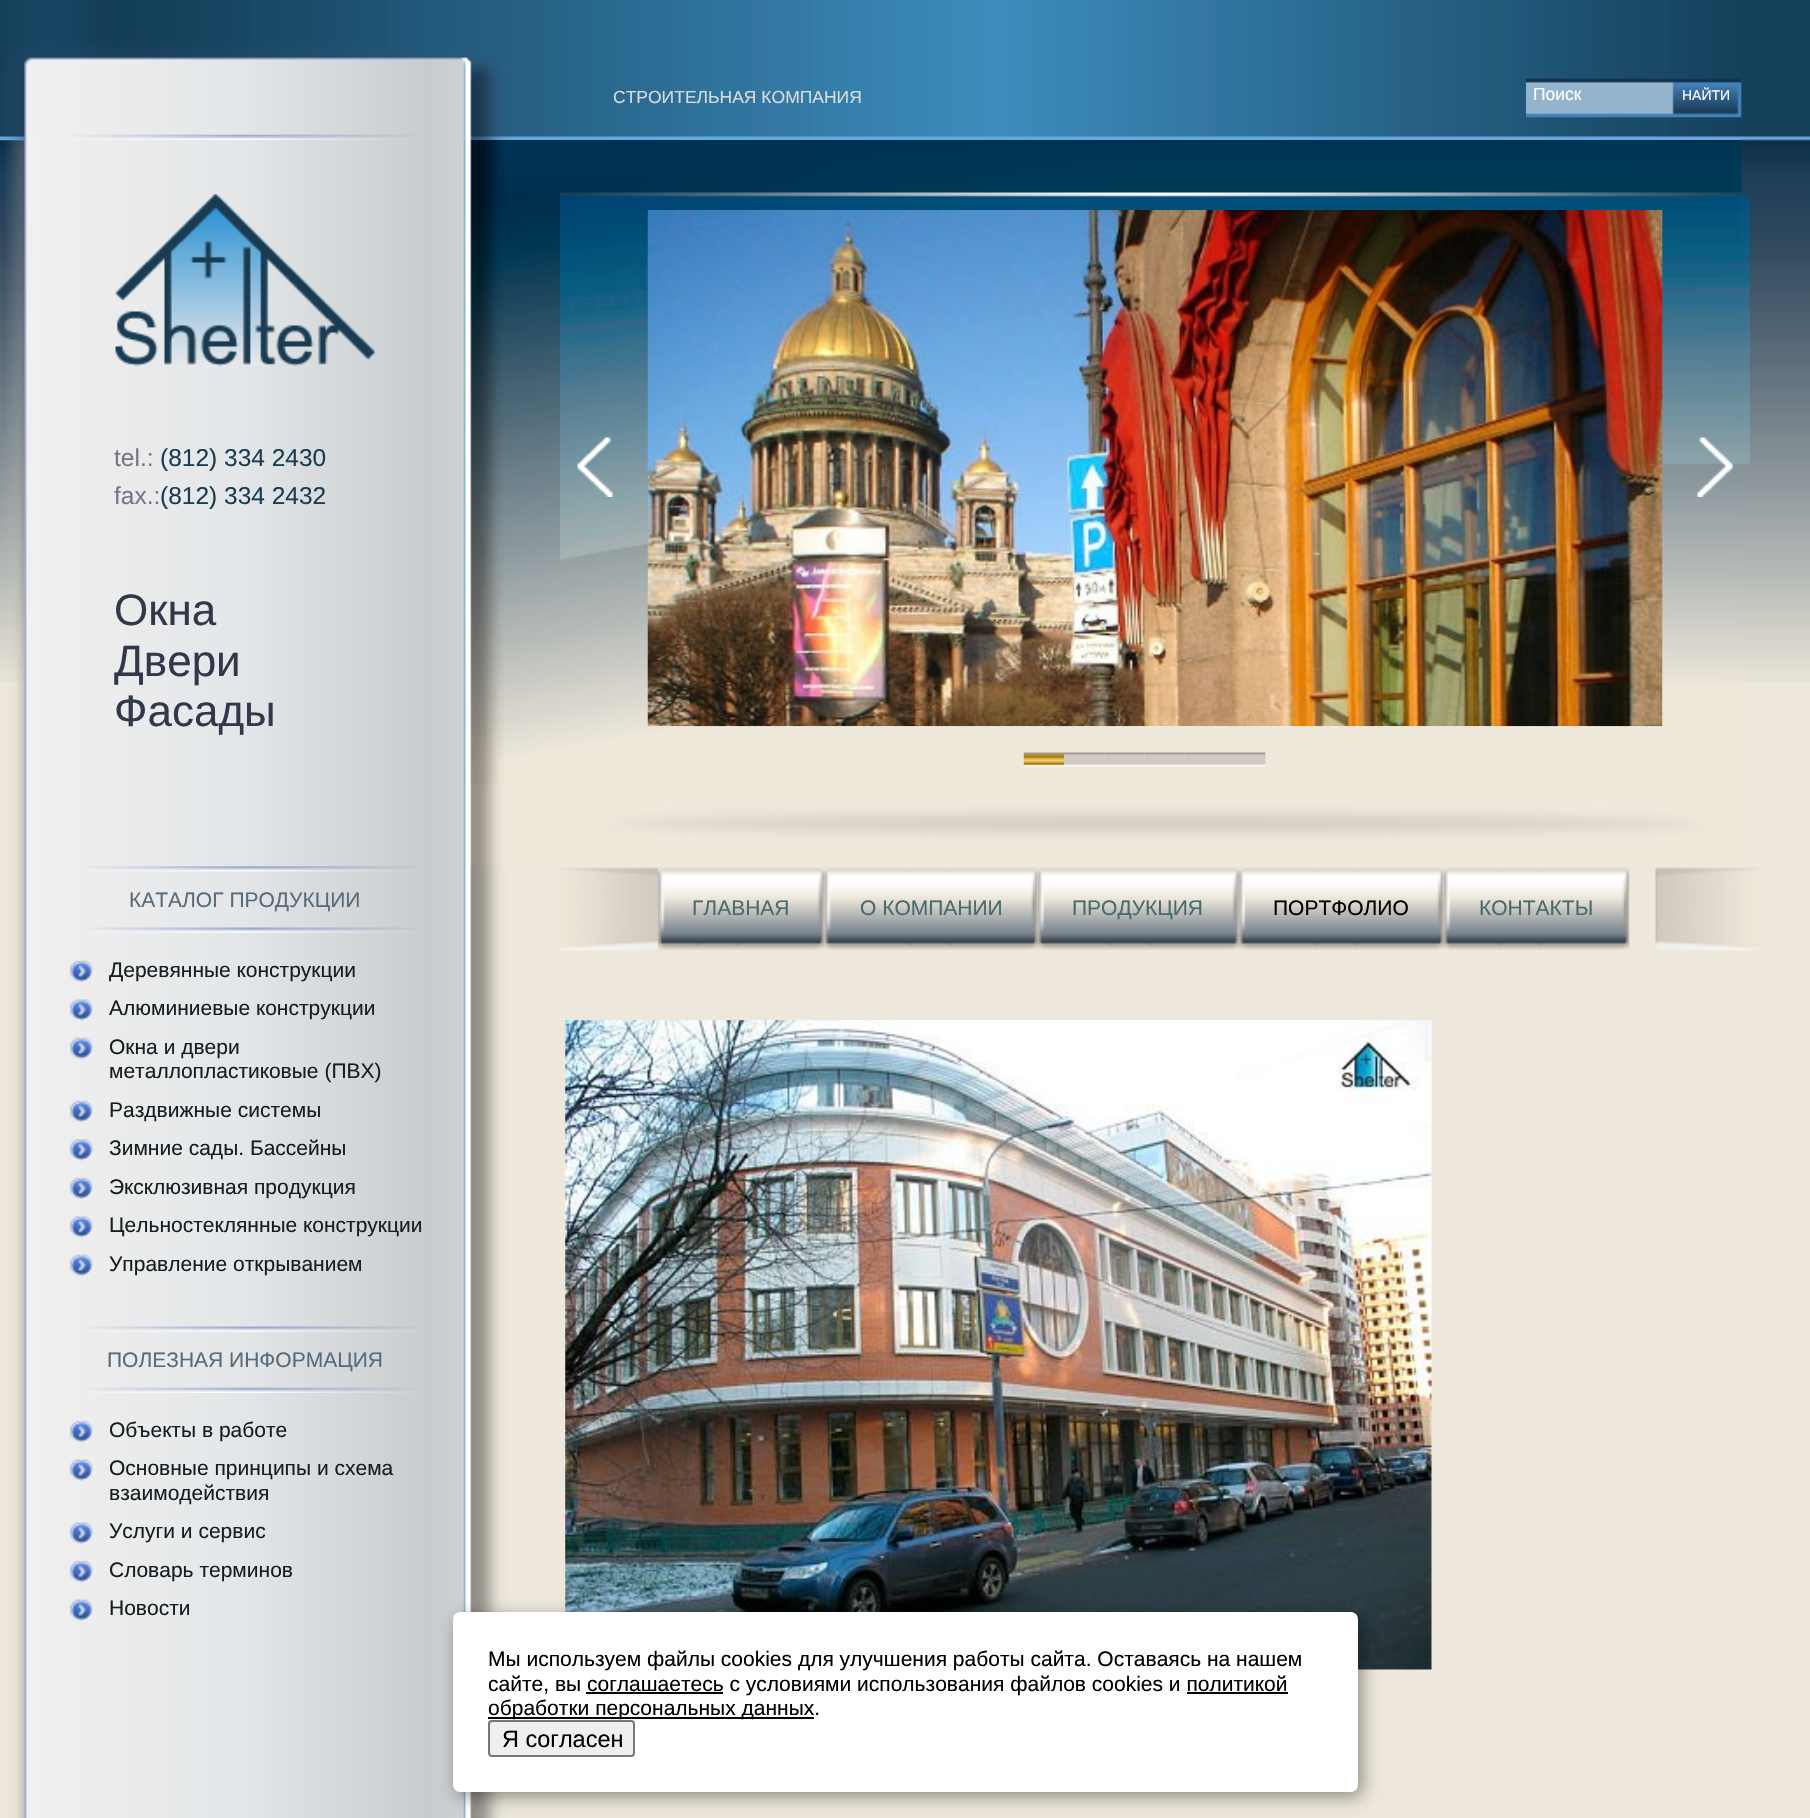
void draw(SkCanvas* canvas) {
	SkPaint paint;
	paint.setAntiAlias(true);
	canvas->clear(0xffede8db);
	canvas->drawImageRect(SkImages::DeferredFromEncodedData(SkData::MakeFromFileName("img1.png")), SkRect::MakeXYWH(0, 0, 1810, 682), SkSamplingOptions());
	canvas->drawImageRect(SkImages::DeferredFromEncodedData(SkData::MakeFromFileName("img2.png")), SkRect::MakeXYWH(5, 140, 503, 1678), SkSamplingOptions());
	canvas->drawImageRect(SkImages::DeferredFromEncodedData(SkData::MakeFromFileName("img3.png")), SkRect::MakeXYWH(0, 0, 1742, 140), SkSamplingOptions());
	SkFont f1(fontMgr->matchFamilyStyle("Liberation Sans", SkFontStyle::Normal()), 17.5);
	f1.setSubpixel(true);
	paint.setColor(0xffd9dcde);
	canvas->drawString("СТРОИТЕЛЬНАЯ КОМПАНИЯ", 613, 103, f1, paint);
	canvas->drawImageRect(SkImages::DeferredFromEncodedData(SkData::MakeFromFileName("img4.png")), SkRect::MakeXYWH(1526, 78, 216, 40), SkSamplingOptions());
	paint.setColor(0xffffffff);
	canvas->drawString("Поиск", 1533, 100, f1, paint);
	SkFont f2(fontMgr->matchFamilyStyle("Liberation Sans", SkFontStyle::Normal()), 14);
	f2.setSubpixel(true);
	canvas->drawString("НАЙТИ", 1682, 100, f2, paint);
	canvas->drawImageRect(SkImages::DeferredFromEncodedData(SkData::MakeFromFileName("img5.png")), SkRect::MakeXYWH(464, 140, 1278, 726), SkSamplingOptions());
	canvas->drawImageRect(SkImages::DeferredFromEncodedData(SkData::MakeFromFileName("img6.png")), SkRect::MakeXYWH(115, 193, 260, 174), SkSamplingOptions());
	SkFont f3(fontMgr->matchFamilyStyle("Liberation Sans", SkFontStyle::Normal()), 24.5);
	f3.setSubpixel(true);
	paint.setColor(0xff74778a);
	canvas->drawString("tel.:", 114, 466, f3, paint);
	paint.setColor(0xff1a3c52);
	canvas->drawString("(812) 334 2430", 160, 466, f3, paint);
	paint.setColor(0xff74778a);
	canvas->drawString("fax.:", 114, 504, f3, paint);
	paint.setColor(0xff1a3c52);
	canvas->drawString("(812) 334 2432", 160, 504, f3, paint);
	SkFont f4(fontMgr->matchFamilyStyle("Liberation Sans", SkFontStyle::Normal()), 44);
	f4.setSubpixel(true);
	paint.setColor(0xff31384a);
	canvas->drawString("Окна", 114, 625, f4, paint);
	canvas->drawString("Двери", 114, 676, f4, paint);
	canvas->drawString("Фасады", 114, 726, f4, paint);
	canvas->drawImageRect(SkImages::DeferredFromEncodedData(SkData::MakeFromFileName("img7.png")), SkRect::MakeXYWH(560, 192, 1190, 647), SkSamplingOptions());
	canvas->drawImageRect(SkImages::DeferredFromEncodedData(SkData::MakeFromFileName("img8.png")), SkRect::MakeXYWH(577, 437, 36, 60), SkSamplingOptions());
	canvas->drawImageRect(SkImages::DeferredFromEncodedData(SkData::MakeFromFileName("img9.png")), SkRect::MakeXYWH(647, 210, 1016, 517), SkSamplingOptions());
	canvas->drawImageRect(SkImages::DeferredFromEncodedData(SkData::MakeFromFileName("img10.png")), SkRect::MakeXYWH(1697, 437, 36, 60), SkSamplingOptions());
	canvas->drawImageRect(SkImages::DeferredFromEncodedData(SkData::MakeFromFileName("img11.png")), SkRect::MakeXYWH(1023, 752, 41, 15), SkSamplingOptions());
	canvas->drawImageRect(SkImages::DeferredFromEncodedData(SkData::MakeFromFileName("img12.png")), SkRect::MakeXYWH(1064, 752, 41, 15), SkSamplingOptions());
	canvas->drawImageRect(SkImages::DeferredFromEncodedData(SkData::MakeFromFileName("img13.png")), SkRect::MakeXYWH(1104, 752, 41, 15), SkSamplingOptions());
	canvas->drawImageRect(SkImages::DeferredFromEncodedData(SkData::MakeFromFileName("img14.png")), SkRect::MakeXYWH(1144, 752, 41, 15), SkSamplingOptions());
	canvas->drawImageRect(SkImages::DeferredFromEncodedData(SkData::MakeFromFileName("img15.png")), SkRect::MakeXYWH(1184, 752, 41, 15), SkSamplingOptions());
	canvas->drawImageRect(SkImages::DeferredFromEncodedData(SkData::MakeFromFileName("img12.png")), SkRect::MakeXYWH(1225, 752, 41, 15), SkSamplingOptions());
	canvas->drawImageRect(SkImages::DeferredFromEncodedData(SkData::MakeFromFileName("img16.png")), SkRect::MakeXYWH(85, 866, 334, 67), SkSamplingOptions());
	SkFont f5(fontMgr->matchFamilyStyle("Liberation Sans", SkFontStyle::Normal()), 21);
	f5.setSubpixel(true);
	paint.setColor(0xff586b7a);
	canvas->drawString("КАТАЛОГ ПРОДУКЦИИ", 129, 907, f5, paint);
	canvas->drawImageRect(SkImages::DeferredFromEncodedData(SkData::MakeFromFileName("img17.png")), SkRect::MakeXYWH(70, 960, 23, 22), SkSamplingOptions());
	paint.setColor(0xff151f20);
	canvas->drawString("Деревянные конструкции", 109, 977, f5, paint);
	canvas->drawImageRect(SkImages::DeferredFromEncodedData(SkData::MakeFromFileName("img18.png")), SkRect::MakeXYWH(70, 999, 23, 22), SkSamplingOptions());
	canvas->drawString("Алюминиевые конструкции", 109, 1015, f5, paint);
	canvas->drawImageRect(SkImages::DeferredFromEncodedData(SkData::MakeFromFileName("img17.png")), SkRect::MakeXYWH(70, 1037, 23, 22), SkSamplingOptions());
	canvas->drawString("Окна и двери", 109, 1054, f5, paint);
	canvas->drawString("металлопластиковые (ПВХ)", 109, 1078, f5, paint);
	canvas->drawImageRect(SkImages::DeferredFromEncodedData(SkData::MakeFromFileName("img17.png")), SkRect::MakeXYWH(70, 1100, 23, 22), SkSamplingOptions());
	canvas->drawString("Раздвижные системы", 109, 1117, f5, paint);
	canvas->drawImageRect(SkImages::DeferredFromEncodedData(SkData::MakeFromFileName("img18.png")), SkRect::MakeXYWH(70, 1139, 23, 22), SkSamplingOptions());
	canvas->drawString("Зимние сады. Бассейны", 109, 1155, f5, paint);
	canvas->drawImageRect(SkImages::DeferredFromEncodedData(SkData::MakeFromFileName("img17.png")), SkRect::MakeXYWH(70, 1177, 23, 22), SkSamplingOptions());
	canvas->drawString("Эксклюзивная продукция", 109, 1194, f5, paint);
	canvas->drawImageRect(SkImages::DeferredFromEncodedData(SkData::MakeFromFileName("img18.png")), SkRect::MakeXYWH(70, 1216, 23, 22), SkSamplingOptions());
	canvas->drawString("Цельностеклянные конструкции", 109, 1232, f5, paint);
	canvas->drawImageRect(SkImages::DeferredFromEncodedData(SkData::MakeFromFileName("img17.png")), SkRect::MakeXYWH(70, 1254, 23, 22), SkSamplingOptions());
	canvas->drawString("Управление открыванием", 109, 1271, f5, paint);
	canvas->drawImageRect(SkImages::DeferredFromEncodedData(SkData::MakeFromFileName("img19.png")), SkRect::MakeXYWH(85, 1326, 334, 67), SkSamplingOptions());
	paint.setColor(0xff586b7a);
	canvas->drawString("ПОЛЕЗНАЯ ИНФОРМАЦИЯ", 107, 1367, f5, paint);
	canvas->drawImageRect(SkImages::DeferredFromEncodedData(SkData::MakeFromFileName("img20.png")), SkRect::MakeXYWH(70, 1420, 23, 22), SkSamplingOptions());
	paint.setColor(0xff151f20);
	canvas->drawString("Объекты в работе", 109, 1437, f5, paint);
	canvas->drawImageRect(SkImages::DeferredFromEncodedData(SkData::MakeFromFileName("img21.png")), SkRect::MakeXYWH(70, 1459, 23, 22), SkSamplingOptions());
	canvas->drawString("Основные принципы и схема", 109, 1475, f5, paint);
	canvas->drawString("взаимодействия", 109, 1500, f5, paint);
	canvas->drawImageRect(SkImages::DeferredFromEncodedData(SkData::MakeFromFileName("img21.png")), SkRect::MakeXYWH(70, 1522, 23, 22), SkSamplingOptions());
	canvas->drawString("Услуги и сервис", 109, 1538, f5, paint);
	canvas->drawImageRect(SkImages::DeferredFromEncodedData(SkData::MakeFromFileName("img20.png")), SkRect::MakeXYWH(70, 1560, 23, 22), SkSamplingOptions());
	canvas->drawString("Словарь терминов", 109, 1577, f5, paint);
	canvas->drawImageRect(SkImages::DeferredFromEncodedData(SkData::MakeFromFileName("img21.png")), SkRect::MakeXYWH(70, 1599, 23, 22), SkSamplingOptions());
	canvas->drawString("Новости", 109, 1615, f5, paint);
	canvas->drawImageRect(SkImages::DeferredFromEncodedData(SkData::MakeFromFileName("img22.png")), SkRect::MakeXYWH(1655, 867, 103, 84), SkSamplingOptions());
	canvas->drawImageRect(SkImages::DeferredFromEncodedData(SkData::MakeFromFileName("img23.png")), SkRect::MakeXYWH(559, 867, 106, 84), SkSamplingOptions());
	canvas->drawImageRect(SkImages::DeferredFromEncodedData(SkData::MakeFromFileName("img24.png")), SkRect::MakeXYWH(658, 867, 167, 84), SkSamplingOptions());
	canvas->drawImageRect(SkImages::DeferredFromEncodedData(SkData::MakeFromFileName("img25.png")), SkRect::MakeXYWH(658, 868, 7, 82), SkSamplingOptions());
	paint.setColor(0xff486a6e);
	canvas->drawString("ГЛАВНАЯ", 692, 915, f5, paint);
	canvas->drawImageRect(SkImages::DeferredFromEncodedData(SkData::MakeFromFileName("img26.png")), SkRect::MakeXYWH(832, 867, 206, 83), SkSamplingOptions());
	canvas->drawImageRect(SkImages::DeferredFromEncodedData(SkData::MakeFromFileName("img27.png")), SkRect::MakeXYWH(824, 867, 8, 83), SkSamplingOptions());
	canvas->drawString("О КОМПАНИИ", 860, 915, f5, paint);
	canvas->drawImageRect(SkImages::DeferredFromEncodedData(SkData::MakeFromFileName("img28.png")), SkRect::MakeXYWH(1037, 867, 202, 83), SkSamplingOptions());
	canvas->drawImageRect(SkImages::DeferredFromEncodedData(SkData::MakeFromFileName("img29.png")), SkRect::MakeXYWH(1037, 868, 8, 82), SkSamplingOptions());
	canvas->drawString("ПРОДУКЦИЯ", 1072, 915, f5, paint);
	canvas->drawImageRect(SkImages::DeferredFromEncodedData(SkData::MakeFromFileName("img30.png")), SkRect::MakeXYWH(1239, 867, 205, 83), SkSamplingOptions());
	canvas->drawImageRect(SkImages::DeferredFromEncodedData(SkData::MakeFromFileName("img25.png")), SkRect::MakeXYWH(1239, 868, 7, 82), SkSamplingOptions());
	paint.setColor(0xff000000);
	canvas->drawString("ПОРТФОЛИО", 1273, 915, f5, paint);
	canvas->drawImageRect(SkImages::DeferredFromEncodedData(SkData::MakeFromFileName("img31.png")), SkRect::MakeXYWH(1443, 867, 187, 83), SkSamplingOptions());
	canvas->drawImageRect(SkImages::DeferredFromEncodedData(SkData::MakeFromFileName("img32.png")), SkRect::MakeXYWH(1443, 868, 8, 82), SkSamplingOptions());
	paint.setColor(0xff486a6e);
	canvas->drawString("КОНТАКТЫ", 1479, 915, f5, paint);
	canvas->drawImageRect(SkImages::DeferredFromEncodedData(SkData::MakeFromFileName("img33.png")), SkRect::MakeXYWH(565, 1020, 867, 650), SkSamplingOptions());
	paint.setColor(0x66000000);
	paint.setMaskFilter(SkMaskFilter::MakeBlur(kNormal_SkBlurStyle, 9));
	canvas->drawRoundRect(SkRect::MakeXYWH(457, 1617, 905, 180), 7, 7, paint);
	paint.setMaskFilter(nullptr);
	paint.setColor(0xffffffff);
	canvas->drawRoundRect(SkRect::MakeXYWH(453, 1612, 905, 180), 7, 7, paint);
	paint.setColor(0xff000000);
	canvas->drawString("Мы используем файлы cookies для улучшения работы сайта. Оставаясь на нашем", 488, 1666, f5, paint);
	canvas->drawString("сайте, вы соглашаетесь с условиями использования файлов cookies и политикой", 488, 1691, f5, paint);
	canvas->drawRect(SkRect::MakeXYWH(586, 1692, 137, 2), paint);
	canvas->drawRect(SkRect::MakeXYWH(488, 1717, 326, 2), paint);
	canvas->drawString("обработки персональных данных.", 488, 1715, f5, paint);
	canvas->drawRect(SkRect::MakeXYWH(1187, 1692, 101, 2), paint);
	paint.setColor(0xffefefef);
	canvas->drawRoundRect(SkRect::MakeXYWH(489, 1721, 145, 35), 3, 3, paint);
	paint.setStroke(true);
	paint.setStrokeWidth(2);
	paint.setColor(0xff767676);
	canvas->drawRoundRect(SkRect::MakeXYWH(489, 1721, 145, 35), 3, 3, paint);
	SkFont f6(fontMgr->matchFamilyStyle("Liberation Sans", SkFontStyle::Normal()), 23.5);
	f6.setSubpixel(true);
	paint.setStroke(false);
	paint.setColor(0xff000000);
	canvas->drawString("Я согласен", 502, 1747, f6, paint);
}
